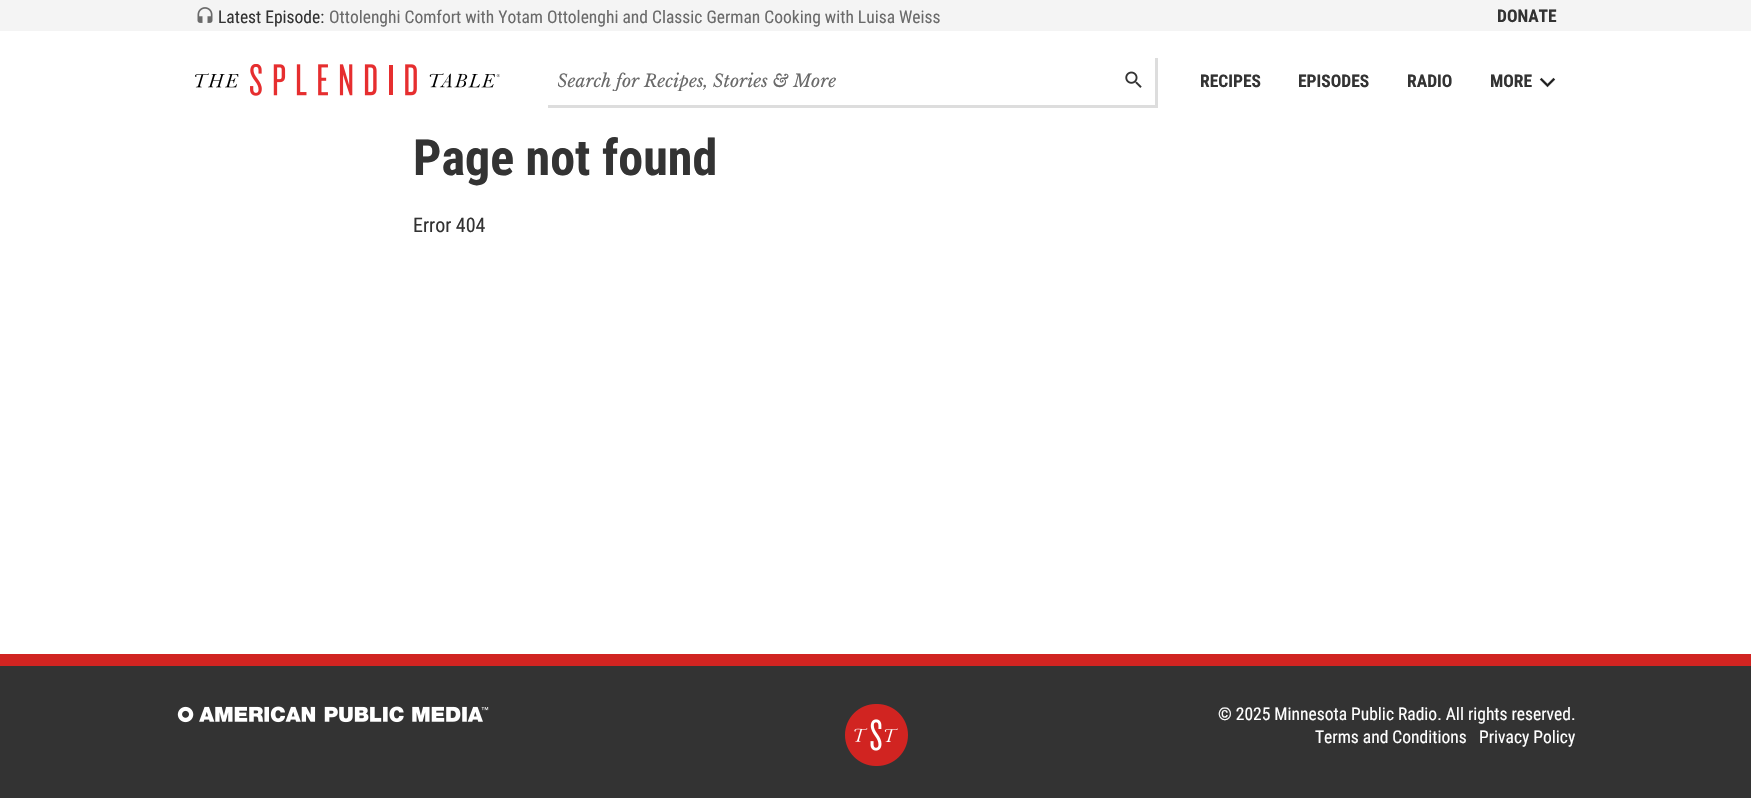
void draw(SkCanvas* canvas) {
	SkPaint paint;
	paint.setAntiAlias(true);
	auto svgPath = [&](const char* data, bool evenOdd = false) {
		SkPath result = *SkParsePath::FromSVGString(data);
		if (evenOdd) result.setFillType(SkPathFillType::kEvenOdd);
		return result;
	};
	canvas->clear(0xffffffff);
	paint.setColor(0xfff4f4f4);
	canvas->drawRect(SkRect::MakeXYWH(0, 0, 1751, 31), paint);
	canvas->drawImageRect(SkImages::DeferredFromEncodedData(SkData::MakeFromFileName("img1.png")), SkRect::MakeXYWH(197, 7, 16, 16), SkSamplingOptions());
	SkFont f1(fontMgr->matchFamilyStyle("Roboto Condensed", SkFontStyle::Normal()), 17.5);
	f1.setSubpixel(true);
	paint.setColor(0xff333333);
	canvas->drawString("Latest Episode:", 218, 23, f1, paint);
	paint.setColor(0xff6a6a6a);
	canvas->drawString("Ottolenghi Comfort with Yotam Ottolenghi and Classic German Cooking with Luisa Weiss", 329, 23, f1, paint);
	SkFont f2(fontMgr->matchFamilyStyle("Roboto Condensed", SkFontStyle::Bold()), 17.5);
	f2.setSubpixel(true);
	paint.setColor(0xff333333);
	canvas->drawString("DONATE", 1497, 22, f2, paint);
	canvas->drawImageRect(SkImages::DeferredFromEncodedData(SkData::MakeFromFileName("img2.png")), SkRect::MakeXYWH(195, 64, 305, 32), SkSamplingOptions());
	paint.setColor(0xffdddddd);
	canvas->drawPath(svgPath("M548 105V108H1158V58H1155V105Z"), paint);
	canvas->save();
	canvas->clipRect(SkRect::MakeXYWH(558, 69, 542, 22));
	SkFont f3(fontMgr->matchFamilyStyle("Libre Baskerville", SkFontStyle::Italic()), 17.5);
	f3.setSubpixel(true);
	paint.setColor(0xff6a6a6a);
	canvas->drawString("Search for Recipes, Stories & More", 557, 87, f3, paint);
	canvas->restore();
	canvas->drawImageRect(SkImages::DeferredFromEncodedData(SkData::MakeFromFileName("img3.png")), SkRect::MakeXYWH(1125, 71, 17, 17), SkSamplingOptions());
	paint.setColor(0xff333333);
	canvas->drawString("RECIPES", 1200, 87, f2, paint);
	canvas->drawString("EPISODES", 1298, 87, f2, paint);
	canvas->drawString("RADIO", 1407, 87, f2, paint);
	canvas->drawString("MORE", 1490, 87, f2, paint);
	canvas->drawImageRect(SkImages::DeferredFromEncodedData(SkData::MakeFromFileName("img4.png")), SkRect::MakeXYWH(1539, 77, 17, 11), SkSamplingOptions());
	SkFont f4(fontMgr->matchFamilyStyle("Roboto Condensed", SkFontStyle::Bold()), 50);
	f4.setSubpixel(true);
	canvas->drawString("Page not found", 413, 175, f4, paint);
	SkFont f5(fontMgr->matchFamilyStyle("Roboto Condensed", SkFontStyle::Normal()), 20);
	f5.setSubpixel(true);
	canvas->drawString("Error 404", 413, 232, f5, paint);
	paint.setColor(0xffd12421);
	canvas->drawRect(SkRect::MakeXYWH(0, 654, 1751, 12), paint);
	paint.setColor(0xff333333);
	canvas->drawRect(SkRect::MakeXYWH(0, 666, 1751, 132), paint);
	canvas->drawImageRect(SkImages::DeferredFromEncodedData(SkData::MakeFromFileName("img5.png")), SkRect::MakeXYWH(177, 706, 312, 17), SkSamplingOptions());
	canvas->drawImageRect(SkImages::DeferredFromEncodedData(SkData::MakeFromFileName("img6.png")), SkRect::MakeXYWH(845, 704, 63, 62), SkSamplingOptions());
	paint.setColor(0xffffffff);
	canvas->drawString("© 2025 Minnesota Public Radio. All rights reserved.", 1218, 720, f1, paint);
	canvas->drawString("Terms and Conditions", 1315, 743, f1, paint);
	canvas->drawString("Privacy Policy", 1479, 743, f1, paint);
}
